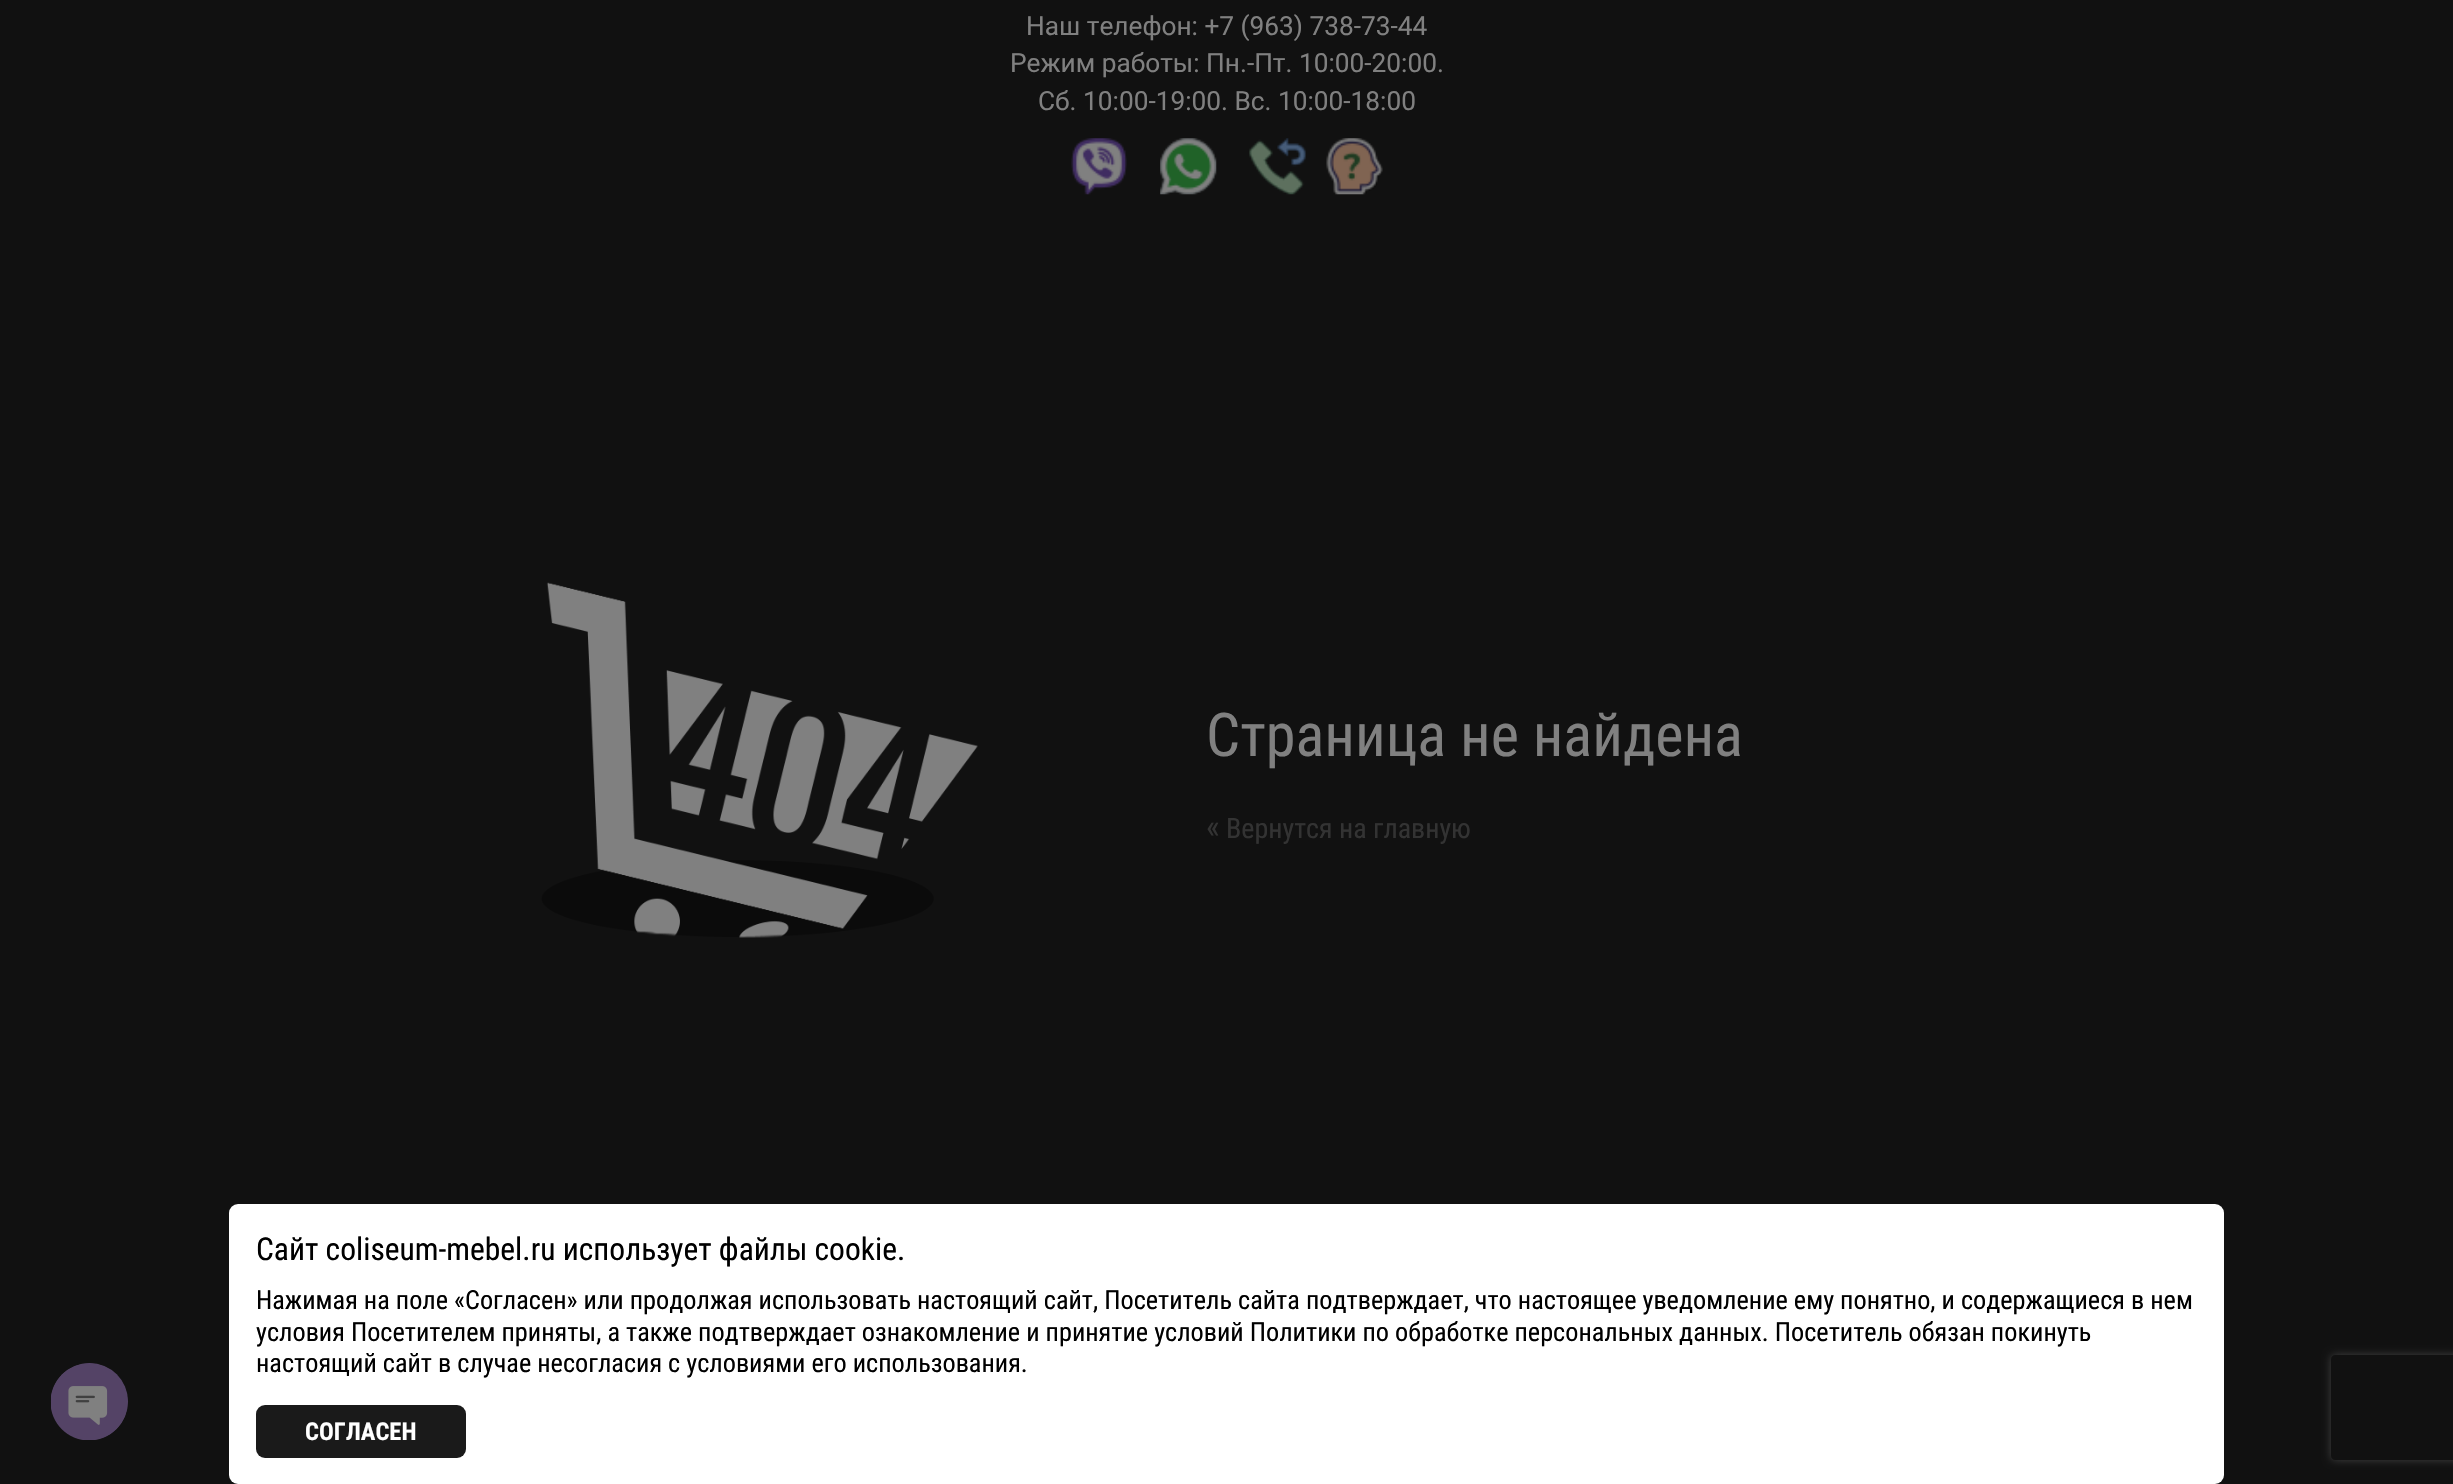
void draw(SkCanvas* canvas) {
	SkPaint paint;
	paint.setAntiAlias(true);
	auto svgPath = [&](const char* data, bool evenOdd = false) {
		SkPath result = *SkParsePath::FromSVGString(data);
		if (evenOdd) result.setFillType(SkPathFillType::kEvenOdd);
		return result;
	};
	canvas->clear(0xff111111);
	SkFont f1(fontMgr->matchFamilyStyle("Roboto", SkFontStyle::Normal()), 26.25);
	f1.setSubpixel(true);
	paint.setColor(0xff808080);
	canvas->drawString("Наш телефон: +7 (963) 738-73-44", 1026, 35, f1, paint);
	canvas->drawString("Режим работы: Пн.-Пт. 10:00-20:00.", 1010, 72, f1, paint);
	canvas->drawString("Сб. 10:00-19:00. Вс. 10:00-18:00", 1038, 110, f1, paint);
	canvas->drawImageRect(SkImages::DeferredFromEncodedData(SkData::MakeFromFileName("img1.png")), SkRect::MakeXYWH(1071, 138, 56, 57), SkSamplingOptions());
	canvas->drawImageRect(SkImages::DeferredFromEncodedData(SkData::MakeFromFileName("img2.png")), SkRect::MakeXYWH(1160, 138, 57, 57), SkSamplingOptions());
	canvas->drawImageRect(SkImages::DeferredFromEncodedData(SkData::MakeFromFileName("img3.png")), SkRect::MakeXYWH(1249, 138, 57, 57), SkSamplingOptions());
	canvas->drawImageRect(SkImages::DeferredFromEncodedData(SkData::MakeFromFileName("img4.png")), SkRect::MakeXYWH(1326, 138, 57, 57), SkSamplingOptions());
	canvas->drawImageRect(SkImages::DeferredFromEncodedData(SkData::MakeFromFileName("img5.png")), SkRect::MakeXYWH(541, 582, 437, 356), SkSamplingOptions());
	SkFont f2(fontMgr->matchFamilyStyle("Roboto Condensed", SkFontStyle::Normal()), 60.25);
	f2.setSubpixel(true);
	canvas->drawString("Страница не найдена", 1206, 756, f2, paint);
	SkFont f3(fontMgr->matchFamilyStyle("Roboto Condensed", SkFontStyle::Normal()), 33);
	f3.setSubpixel(true);
	paint.setColor(0xff333333);
	canvas->drawString("«", 1206, 838, f3, paint);
	SkFont f4(fontMgr->matchFamilyStyle("Roboto Condensed", SkFontStyle::Normal()), 28);
	f4.setSubpixel(true);
	canvas->drawString("Вернутся на главную", 1226, 838, f4, paint);
	paint.setColor(0xff544367);
	canvas->drawCircle(89.5, 1401.5, 38.5, paint);
	canvas->drawImageRect(SkImages::DeferredFromEncodedData(SkData::MakeFromFileName("img6.png")), SkRect::MakeXYWH(51, 1363, 77, 77), SkSamplingOptions());
	paint.setColor(0xffffffff);
	canvas->drawRoundRect(SkRect::MakeXYWH(229, 1204, 1995, 280), 9, 9, paint);
	SkFont f5(fontMgr->matchFamilyStyle("Roboto Condensed", SkFontStyle::Normal()), 31.5);
	f5.setSubpixel(true);
	paint.setColor(0xff000000);
	canvas->drawString("Сайт coliseum-mebel.ru использует файлы cookie.", 256, 1260, f5, paint);
	SkFont f6(fontMgr->matchFamilyStyle("Roboto Condensed", SkFontStyle::Normal()), 26.25);
	f6.setSubpixel(true);
	canvas->drawString("Нажимая на поле «Согласен» или продолжая использовать настоящий сайт, Посетитель сайта подтверждает, что настоящее уведомление ему понятно, и содержащиеся в нем", 256, 1309, f6, paint);
	canvas->drawString("условия Посетителем приняты, а также подтверждает ознакомление и принятие условий Политики по обработке персональных данных. Посетитель обязан покинуть", 256, 1341, f6, paint);
	canvas->drawString("настоящий сайт в случае несогласия с условиями его использования.", 256, 1372, f6, paint);
	paint.setColor(0xff1a1a1a);
	canvas->drawRoundRect(SkRect::MakeXYWH(256, 1405, 210, 53), 9, 9, paint);
	SkFont f7(fontMgr->matchFamilyStyle("Roboto Condensed", SkFontStyle::Bold()), 24.5);
	f7.setSubpixel(true);
	paint.setColor(0xffffffff);
	canvas->drawString("СОГЛАСЕН", 305, 1440, f7, paint);
	canvas->save();
	canvas->clipPath(svgPath("M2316 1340H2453V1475H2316ZM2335 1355H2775C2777 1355 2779 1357 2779 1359V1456C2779 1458 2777 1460 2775 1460H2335C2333 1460 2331 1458 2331 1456V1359C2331 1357 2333 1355 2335 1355Z", true), true);
	paint.setColor(0xff404040);
	paint.setMaskFilter(SkMaskFilter::MakeBlur(kNormal_SkBlurStyle, 4.5));
	canvas->drawRoundRect(SkRect::MakeXYWH(2331, 1355, 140, 105), 4, 4, paint);
	paint.setMaskFilter(nullptr);
	canvas->restore();
}
